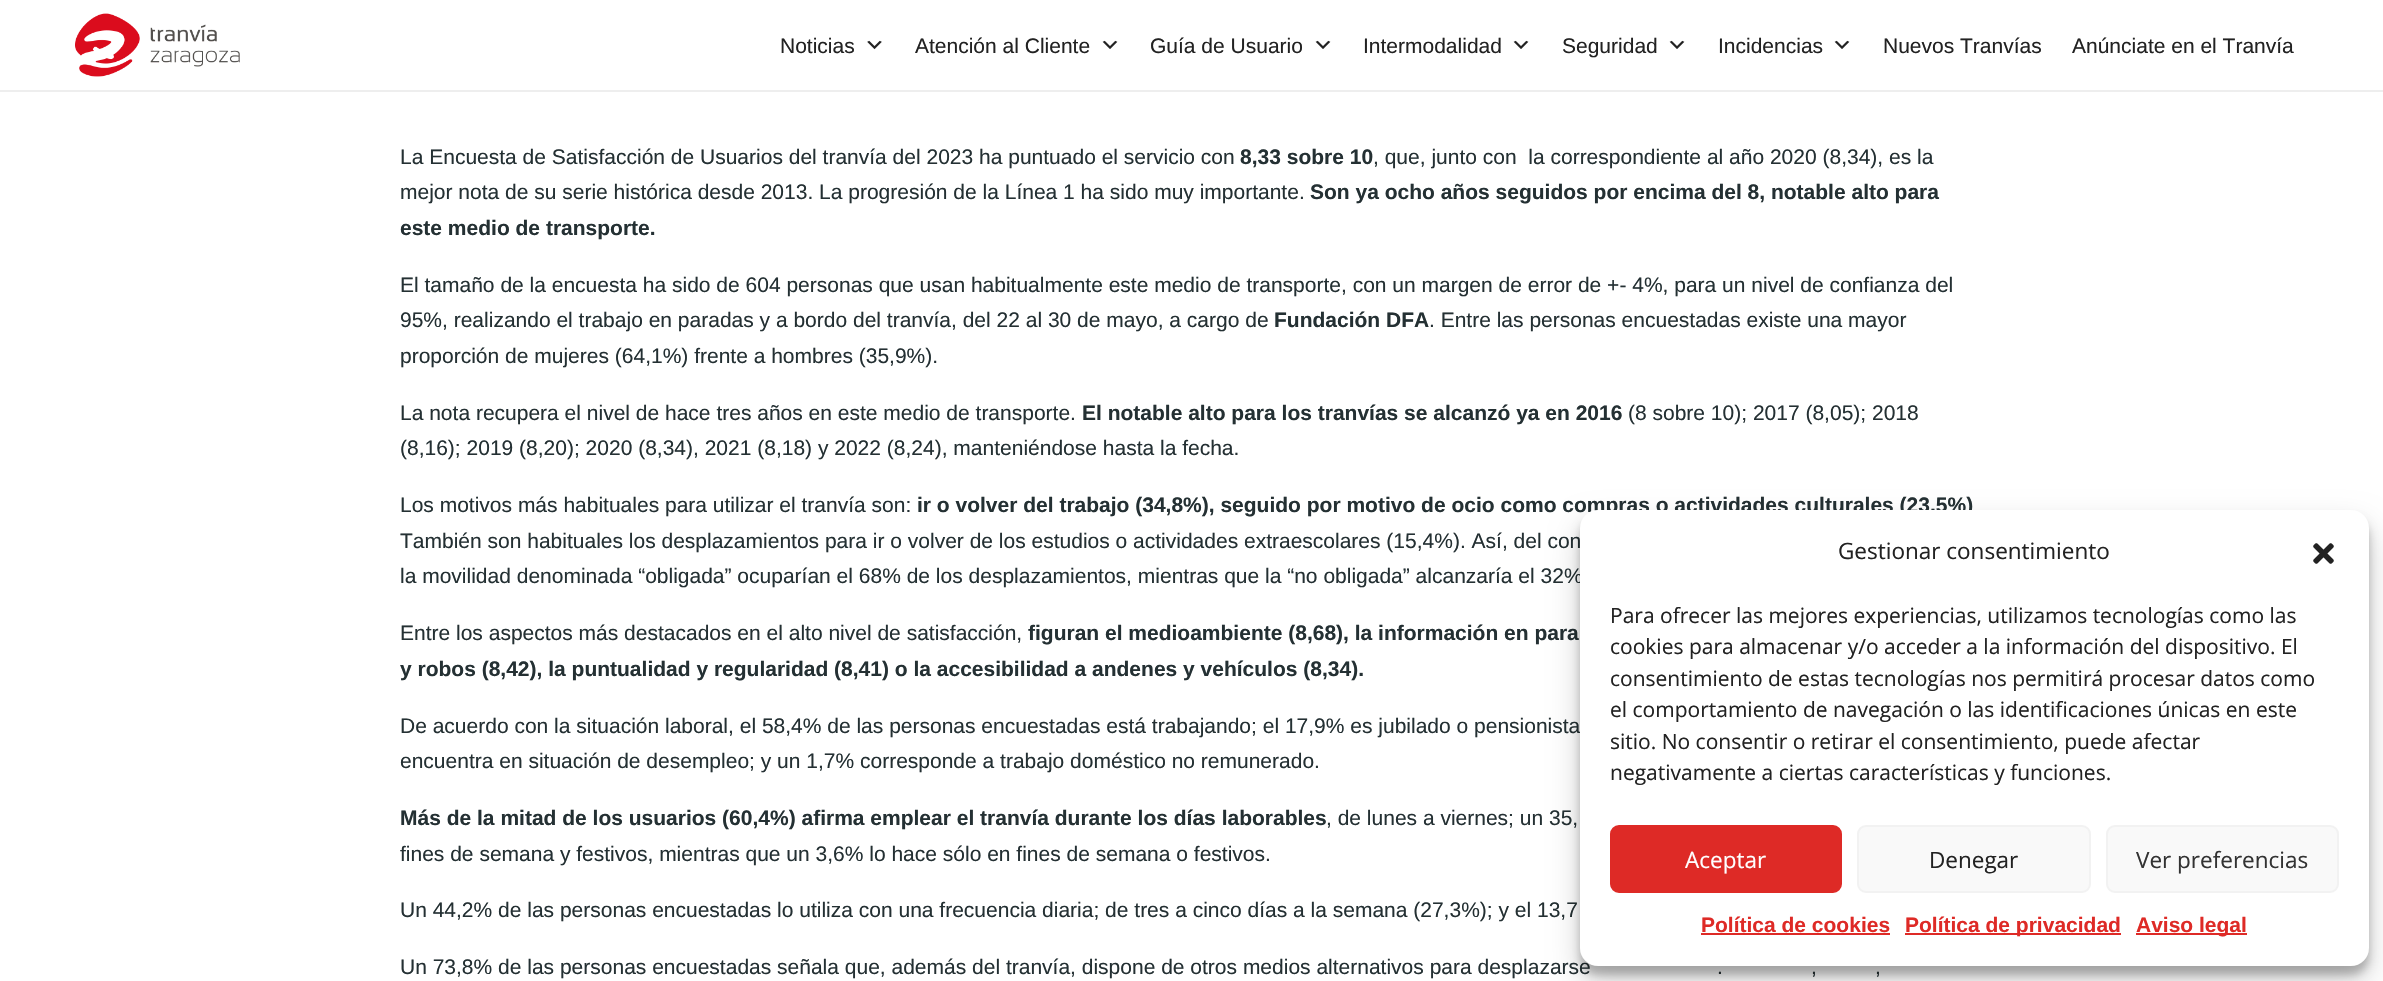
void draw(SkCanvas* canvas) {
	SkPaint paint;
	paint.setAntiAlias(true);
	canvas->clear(0xffffffff);
	paint.setColor(0xffeeeeee);
	canvas->drawRect(SkRect::MakeXYWH(0, 90, 2383, 2), paint);
	canvas->drawImageRect(SkImages::DeferredFromEncodedData(SkData::MakeFromFileName("img1.png")), SkRect::MakeXYWH(75, 13, 165, 64), SkSamplingOptions());
	SkFont f1(fontMgr->matchFamilyStyle("Liberation Sans", SkFontStyle::Normal()), 21);
	f1.setSubpixel(true);
	paint.setColor(0xff222222);
	canvas->drawString("Noticias", 780, 53, f1, paint);
	canvas->drawImageRect(SkImages::DeferredFromEncodedData(SkData::MakeFromFileName("img2.png")), SkRect::MakeXYWH(867, 40, 15, 10), SkSamplingOptions());
	canvas->drawString("Atención al Cliente", 915, 53, f1, paint);
	canvas->drawImageRect(SkImages::DeferredFromEncodedData(SkData::MakeFromFileName("img3.png")), SkRect::MakeXYWH(1102, 40, 16, 9), SkSamplingOptions());
	canvas->drawString("Guía de Usuario", 1150, 53, f1, paint);
	canvas->drawImageRect(SkImages::DeferredFromEncodedData(SkData::MakeFromFileName("img3.png")), SkRect::MakeXYWH(1315, 40, 16, 9), SkSamplingOptions());
	canvas->drawString("Intermodalidad", 1363, 53, f1, paint);
	canvas->drawImageRect(SkImages::DeferredFromEncodedData(SkData::MakeFromFileName("img3.png")), SkRect::MakeXYWH(1513, 40, 16, 9), SkSamplingOptions());
	canvas->drawString("Seguridad", 1562, 53, f1, paint);
	canvas->drawImageRect(SkImages::DeferredFromEncodedData(SkData::MakeFromFileName("img3.png")), SkRect::MakeXYWH(1669, 40, 16, 9), SkSamplingOptions());
	canvas->drawString("Incidencias", 1718, 53, f1, paint);
	canvas->drawImageRect(SkImages::DeferredFromEncodedData(SkData::MakeFromFileName("img3.png")), SkRect::MakeXYWH(1834, 40, 16, 9), SkSamplingOptions());
	canvas->drawString("Nuevos Tranvías", 1883, 53, f1, paint);
	canvas->drawString("Anúnciate en el Tranvía", 2072, 53, f1, paint);
	paint.setColor(0xff243033);
	canvas->drawString("La Encuesta de Satisfacción de Usuarios del tranvía del 2023 ha puntuado el servicio con", 400, 164, f1, paint);
	SkFont f2(fontMgr->matchFamilyStyle("Liberation Sans", SkFontStyle::Bold()), 21);
	f2.setSubpixel(true);
	canvas->drawString("8,33 sobre 10", 1240, 164, f2, paint);
	canvas->drawString(", que, junto con  la correspondiente al año 2020 (8,34), es la", 1373, 164, f1, paint);
	canvas->drawString("mejor nota de su serie histórica desde 2013. La progresión de la Línea 1 ha sido muy importante.", 400, 199, f1, paint);
	canvas->drawString("Son ya ocho años seguidos por encima del 8, notable alto para", 1310, 199, f2, paint);
	canvas->drawString("este medio de transporte.", 400, 235, f2, paint);
	canvas->drawString("El tamaño de la encuesta ha sido de 604 personas que usan habitualmente este medio de transporte, con un margen de error de +- 4%, para un nivel de confianza del", 400, 292, f1, paint);
	canvas->drawString("95%, realizando el trabajo en paradas y a bordo del tranvía, del 22 al 30 de mayo, a cargo de", 400, 327, f1, paint);
	canvas->drawString("Fundación DFA", 1274, 327, f2, paint);
	canvas->drawString(". Entre las personas encuestadas existe una mayor", 1429, 327, f1, paint);
	canvas->drawString("proporción de mujeres (64,1%) frente a hombres (35,9%).", 400, 363, f1, paint);
	canvas->drawString("La nota recupera el nivel de hace tres años en este medio de transporte.", 400, 420, f1, paint);
	canvas->drawString("El notable alto para los tranvías se alcanzó ya en 2016", 1082, 420, f2, paint);
	canvas->drawString("(8 sobre 10); 2017 (8,05); 2018", 1628, 420, f1, paint);
	canvas->drawString("(8,16); 2019 (8,20); 2020 (8,34), 2021 (8,18) y 2022 (8,24), manteniéndose hasta la fecha.", 400, 455, f1, paint);
	canvas->drawString("Los motivos más habituales para utilizar el tranvía son:", 400, 512, f1, paint);
	canvas->drawString("ir o volver del trabajo (34,8%), seguido por motivo de ocio como compras o actividades culturales (23,5%)", 917, 512, f2, paint);
	canvas->drawString("También son habituales los desplazamientos para ir o volver de los estudios o actividades extraescolares (15,4%). Así, del con", 400, 548, f1, paint);
	canvas->drawString("la movilidad denominada “obligada” ocuparían el 68% de los desplazamientos, mientras que la “no obligada” alcanzaría el 32%", 400, 583, f1, paint);
	canvas->drawString("Entre los aspectos más destacados en el alto nivel de satisfacción,", 400, 640, f1, paint);
	canvas->drawString("figuran el medioambiente (8,68), la información en para", 1028, 640, f2, paint);
	canvas->drawString("y robos (8,42), la puntualidad y regularidad (8,41) o la accesibilidad a andenes y vehículos (8,34).", 400, 676, f2, paint);
	canvas->drawString("De acuerdo con la situación laboral, el 58,4% de las personas encuestadas está trabajando; el 17,9% es jubilado o pensionista", 400, 733, f1, paint);
	canvas->drawString("encuentra en situación de desempleo; y un 1,7% corresponde a trabajo doméstico no remunerado.", 400, 768, f1, paint);
	canvas->drawString("Más de la mitad de los usuarios (60,4%) afirma emplear el tranvía durante los días laborables", 400, 825, f2, paint);
	canvas->drawString(", de lunes a viernes; un 35,", 1326, 825, f1, paint);
	canvas->drawString("fines de semana y festivos, mientras que un 3,6% lo hace sólo en fines de semana o festivos.", 400, 861, f1, paint);
	canvas->drawString("Un 44,2% de las personas encuestadas lo utiliza con una frecuencia diaria; de tres a cinco días a la semana (27,3%); y el 13,7", 400, 917, f1, paint);
	canvas->drawString("Un 73,8% de las personas encuestadas señala que, además del tranvía, dispone de otros medios alternativos para desplazarse", 400, 974, f1, paint);
	canvas->drawString(".", 1717, 974, f1, paint);
	canvas->drawString(",", 1811, 974, f1, paint);
	canvas->drawString(",", 1875, 974, f1, paint);
	paint.setColor(0x3b000000);
	paint.setMaskFilter(SkMaskFilter::MakeBlur(kNormal_SkBlurStyle, 4.5));
	canvas->drawRoundRect(SkRect::MakeXYWH(1580, 519, 789, 456), 18, 18, paint);
	paint.setMaskFilter(nullptr);
	paint.setColor(0x30000000);
	paint.setMaskFilter(SkMaskFilter::MakeBlur(kNormal_SkBlurStyle, 15));
	canvas->drawRoundRect(SkRect::MakeXYWH(1580, 525, 789, 456), 18, 18, paint);
	paint.setMaskFilter(nullptr);
	paint.setColor(0xffffffff);
	canvas->drawRoundRect(SkRect::MakeXYWH(1580, 510, 789, 456), 18, 18, paint);
	SkFont f3(fontMgr->matchFamilyStyle("Open Sans", SkFontStyle::Normal()), 22.5);
	f3.setSubpixel(true);
	paint.setColor(0xff222222);
	canvas->drawString("Gestionar consentimiento", 1838, 559, f3, paint);
	canvas->drawImageRect(SkImages::DeferredFromEncodedData(SkData::MakeFromFileName("img4.png")), SkRect::MakeXYWH(2313, 543, 21, 21), SkSamplingOptions());
	SkFont f4(fontMgr->matchFamilyStyle("Open Sans", SkFontStyle::Normal()), 21);
	f4.setSubpixel(true);
	canvas->drawString("Para ofrecer las mejores experiencias, utilizamos tecnologías como las", 1610, 623, f4, paint);
	canvas->drawString("cookies para almacenar y/o acceder a la información del dispositivo. El", 1610, 654, f4, paint);
	canvas->drawString("consentimiento de estas tecnologías nos permitirá procesar datos como", 1610, 686, f4, paint);
	canvas->drawString("el comportamiento de navegación o las identificaciones únicas en este", 1610, 717, f4, paint);
	canvas->drawString("sitio. No consentir o retirar el consentimiento, puede afectar", 1610, 749, f4, paint);
	canvas->drawString("negativamente a ciertas características y funciones.", 1610, 780, f4, paint);
	paint.setColor(0xffde2a26);
	canvas->drawRoundRect(SkRect::MakeXYWH(1611, 826, 230, 66), 8, 8, paint);
	paint.setStroke(true);
	paint.setStrokeWidth(2);
	canvas->drawRoundRect(SkRect::MakeXYWH(1611, 826, 230, 66), 8, 8, paint);
	paint.setStroke(false);
	paint.setColor(0xffffffff);
	canvas->drawString("Aceptar", 1685, 868, f3, paint);
	paint.setColor(0xfff9f9f9);
	canvas->drawRoundRect(SkRect::MakeXYWH(1858, 826, 232, 66), 8, 8, paint);
	paint.setStroke(true);
	paint.setColor(0xfff2f2f2);
	canvas->drawRoundRect(SkRect::MakeXYWH(1858, 826, 232, 66), 8, 8, paint);
	paint.setStroke(false);
	paint.setColor(0xff222222);
	canvas->drawString("Denegar", 1929, 868, f3, paint);
	paint.setColor(0xfff9f9f9);
	canvas->drawRoundRect(SkRect::MakeXYWH(2107, 826, 231, 66), 8, 8, paint);
	paint.setStroke(true);
	paint.setColor(0xfff2f2f2);
	canvas->drawRoundRect(SkRect::MakeXYWH(2107, 826, 231, 66), 8, 8, paint);
	paint.setStroke(false);
	paint.setColor(0xff333333);
	canvas->drawString("Ver preferencias", 2136, 868, f3, paint);
	paint.setColor(0xffde2a26);
	canvas->drawString("Política de cookies", 1701, 932, f2, paint);
	canvas->drawRect(SkRect::MakeXYWH(1701, 933, 189, 2), paint);
	canvas->drawRect(SkRect::MakeXYWH(1905, 933, 216, 2), paint);
	canvas->drawString("Política de privacidad", 1905, 932, f2, paint);
	canvas->drawRect(SkRect::MakeXYWH(2136, 933, 111, 2), paint);
	canvas->drawString("Aviso legal", 2136, 932, f2, paint);
}
